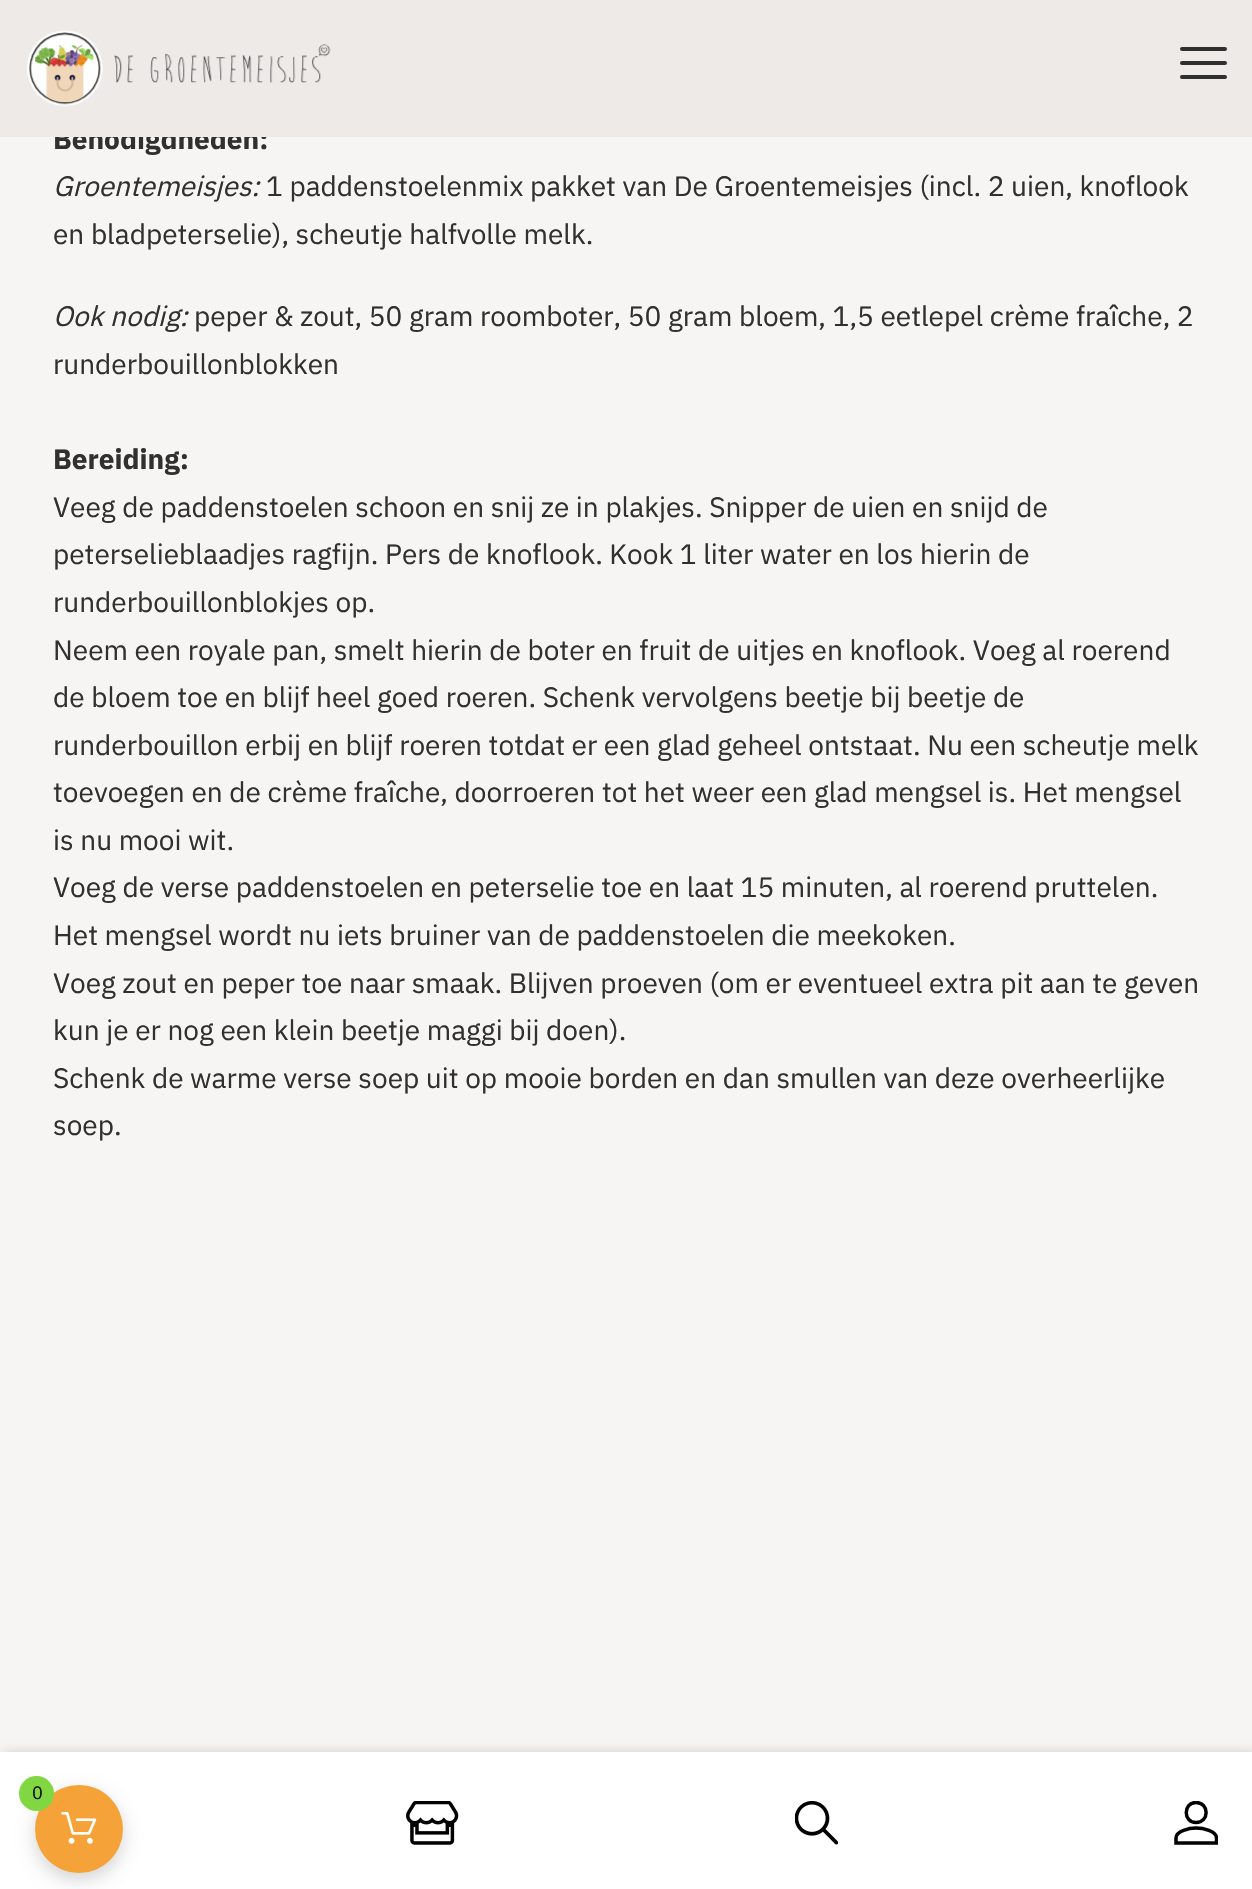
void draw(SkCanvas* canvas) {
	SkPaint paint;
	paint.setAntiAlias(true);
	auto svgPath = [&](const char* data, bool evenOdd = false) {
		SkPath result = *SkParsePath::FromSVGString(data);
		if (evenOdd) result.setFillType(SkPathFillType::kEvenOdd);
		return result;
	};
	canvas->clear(0xfff7f5f3);
	SkFont f1(fontMgr->matchFamilyStyle("IBM Plex Sans", SkFontStyle::Bold()), 28);
	f1.setSubpixel(true);
	paint.setColor(0xff303030);
	canvas->drawString("Benodigdheden:", 53, 149, f1, paint);
	paint.setColor(0xffedeae7);
	canvas->drawRect(SkRect::MakeXYWH(0, 0, 1252, 137), paint);
	canvas->drawImageRect(SkImages::DeferredFromEncodedData(SkData::MakeFromFileName("img1.png")), SkRect::MakeXYWH(27, 30, 304, 77), SkSamplingOptions());
	paint.setColor(0xff303030);
	canvas->drawRoundRect(SkRect::MakeXYWH(1180, 61, 47, 4), 2, 2, paint);
	canvas->drawRoundRect(SkRect::MakeXYWH(1180, 47, 47, 4), 2, 2, paint);
	canvas->drawRoundRect(SkRect::MakeXYWH(1180, 75, 47, 4), 2, 2, paint);
	paint.setColor(0x29000000);
	paint.setMaskFilter(SkMaskFilter::MakeBlur(kNormal_SkBlurStyle, 5));
	canvas->drawRect(SkRect::MakeXYWH(4, 1752, 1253, 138), paint);
	paint.setMaskFilter(nullptr);
	paint.setColor(0xffffffff);
	canvas->drawRect(SkRect::MakeXYWH(0, 1752, 1252, 137), paint);
	canvas->drawImageRect(SkImages::DeferredFromEncodedData(SkData::MakeFromFileName("img2.png")), SkRect::MakeXYWH(406, 1801, 53, 44), SkSamplingOptions());
	canvas->drawImageRect(SkImages::DeferredFromEncodedData(SkData::MakeFromFileName("img3.png")), SkRect::MakeXYWH(795, 1801, 43, 44), SkSamplingOptions());
	canvas->save();
	canvas->clipRect(SkRect::MakeXYWH(1174, 1801, 44, 44));
	paint.setStroke(true);
	paint.setStrokeWidth(3.5);
	paint.setColor(0xff000000);
	canvas->drawPath(svgPath("M1196 1822.5C1209.5 1822.5 1209.5 1802.5 1196 1802.5C1183 1802.5 1183 1822.5 1196 1822.5ZM1196 1828C1189.5 1828 1176 1831 1176 1838V1843H1216.5V1838C1216.5 1831 1203 1828 1196 1828Z"), paint);
	canvas->restore();
	SkFont f2(fontMgr->matchFamilyStyle("IBM Plex Sans", SkFontStyle::Italic()), 28);
	f2.setSubpixel(true);
	paint.setStroke(false);
	paint.setColor(0xff303030);
	canvas->drawString("Groentemeisjes:", 53, 196, f2, paint);
	SkFont f3(fontMgr->matchFamilyStyle("IBM Plex Sans", SkFontStyle::Normal()), 28);
	f3.setSubpixel(true);
	canvas->drawString("1 paddenstoelenmix pakket van De Groentemeisjes (incl. 2 uien, knoflook", 266, 196, f3, paint);
	canvas->drawString("en bladpeterselie), scheutje halfvolle melk.", 53, 244, f3, paint);
	canvas->drawString("Ook nodig:", 53, 326, f2, paint);
	canvas->drawString("peper & zout, 50 gram roomboter, 50 gram bloem, 1,5 eetlepel crème fraîche, 2", 194, 326, f3, paint);
	canvas->drawString("runderbouillonblokken", 53, 374, f3, paint);
	canvas->drawString("Bereiding:", 53, 469, f1, paint);
	canvas->drawString("Veeg de paddenstoelen schoon en snij ze in plakjes. Snipper de uien en snijd de", 53, 517, f3, paint);
	canvas->drawString("peterselieblaadjes ragfijn. Pers de knoflook. Kook 1 liter water en los hierin de", 53, 564, f3, paint);
	canvas->drawString("runderbouillonblokjes op.", 53, 612, f3, paint);
	canvas->drawString("Neem een royale pan, smelt hierin de boter en fruit de uitjes en knoflook. Voeg al roerend", 53, 660, f3, paint);
	canvas->drawString("de bloem toe en blijf heel goed roeren. Schenk vervolgens beetje bij beetje de", 53, 707, f3, paint);
	canvas->drawString("runderbouillon erbij en blijf roeren totdat er een glad geheel ontstaat. Nu een scheutje melk", 53, 755, f3, paint);
	canvas->drawString("toevoegen en de crème fraîche, doorroeren tot het weer een glad mengsel is. Het mengsel", 53, 802, f3, paint);
	canvas->drawString("is nu mooi wit.", 53, 850, f3, paint);
	canvas->drawString("Voeg de verse paddenstoelen en peterselie toe en laat 15 minuten, al roerend pruttelen.", 53, 897, f3, paint);
	canvas->drawString("Het mengsel wordt nu iets bruiner van de paddenstoelen die meekoken.", 53, 945, f3, paint);
	canvas->drawString("Voeg zout en peper toe naar smaak. Blijven proeven (om er eventueel extra pit aan te geven", 53, 993, f3, paint);
	canvas->drawString("kun je er nog een klein beetje maggi bij doen).", 53, 1040, f3, paint);
	canvas->drawString("Schenk de warme verse soep uit op mooie borden en dan smullen van deze overheerlijke", 53, 1088, f3, paint);
	canvas->drawString("soep.", 53, 1135, f3, paint);
	paint.setColor(0x2b000000);
	paint.setMaskFilter(SkMaskFilter::MakeBlur(kNormal_SkBlurStyle, 9));
	canvas->drawRoundRect(SkRect::MakeXYWH(35, 1792, 88, 88), 44, 44, paint);
	paint.setMaskFilter(nullptr);
	paint.setColor(0xfff5a338);
	canvas->drawCircle(79, 1829, 44, paint);
	paint.setColor(0xff81d742);
	canvas->drawCircle(36.5, 1793.5, 17.5, paint);
	SkFont f4(fontMgr->matchFamilyStyle("IBM Plex Sans", SkFontStyle::Normal()), 18);
	f4.setSubpixel(true);
	paint.setColor(0xff0a0a0a);
	canvas->drawString("0", 32, 1799, f4, paint);
	canvas->drawImageRect(SkImages::DeferredFromEncodedData(SkData::MakeFromFileName("img4.png")), SkRect::MakeXYWH(61, 1812, 36, 32), SkSamplingOptions());
}
